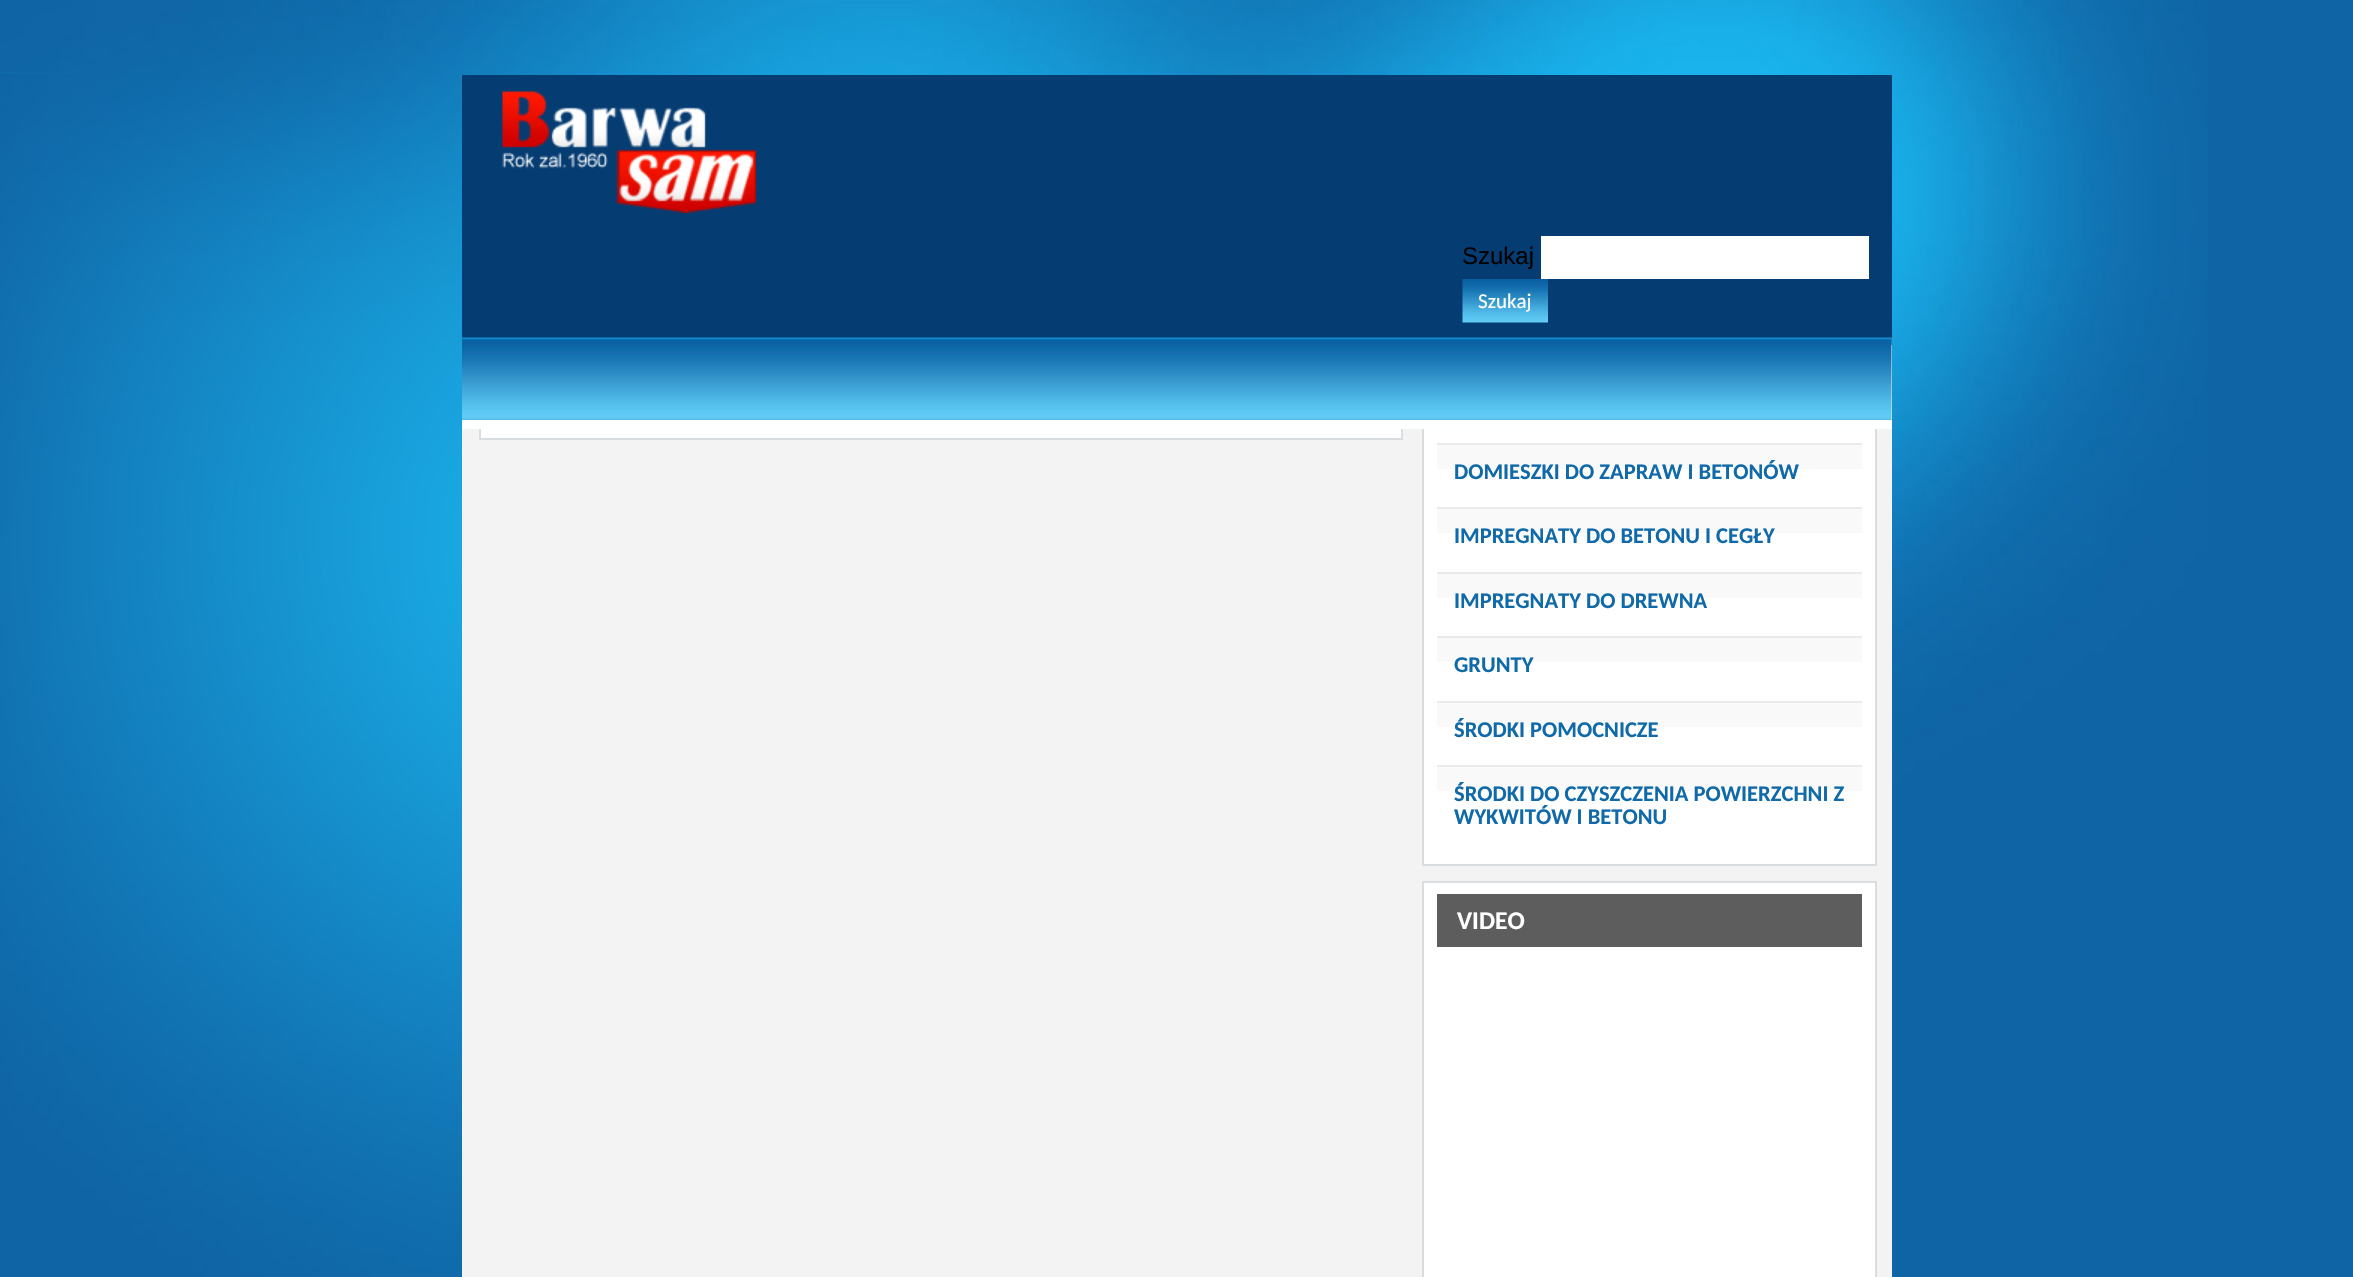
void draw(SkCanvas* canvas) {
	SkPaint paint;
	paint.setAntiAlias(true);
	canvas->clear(0xff0f64a5);
	canvas->drawImageRect(SkImages::DeferredFromEncodedData(SkData::MakeFromFileName("img1.png")), SkRect::MakeXYWH(0, 0, 2208, 1277), SkSamplingOptions());
	paint.setColor(0xff106aa9);
	canvas->drawRect(SkRect::MakeXYWH(0, 72, 73, 2), paint);
	paint.setColor(0xff053c72);
	canvas->drawRect(SkRect::MakeXYWH(462, 75, 1430, 263), paint);
	canvas->drawImageRect(SkImages::DeferredFromEncodedData(SkData::MakeFromFileName("img2.png")), SkRect::MakeXYWH(502, 91, 254, 122), SkSamplingOptions());
	SkFont f1(fontMgr->matchFamilyStyle("Liberation Sans", SkFontStyle::Normal()), 24);
	f1.setSubpixel(true);
	paint.setColor(0xff000000);
	canvas->drawString("Szukaj", 1462, 264, f1, paint);
	paint.setColor(0xffffffff);
	canvas->drawRect(SkRect::MakeXYWH(1541, 236, 328, 43), paint);
	canvas->drawImageRect(SkImages::DeferredFromEncodedData(SkData::MakeFromFileName("img3.png")), SkRect::MakeXYWH(1462, 279, 86, 44), SkSamplingOptions());
	SkFont f2(fontMgr->matchFamilyStyle("Carlito", SkFontStyle::Normal()), 21);
	f2.setSubpixel(true);
	canvas->drawString("Szukaj", 1478, 308, f2, paint);
	paint.setColor(0xfff3f3f3);
	canvas->drawRect(SkRect::MakeXYWH(462, 345, 1430, 932), paint);
	paint.setColor(0xffffffff);
	canvas->drawRect(SkRect::MakeXYWH(481, 429, 920, 9), paint);
	paint.setStroke(true);
	paint.setStrokeWidth(2);
	paint.setColor(0xffd9dddf);
	canvas->drawRect(SkRect::MakeXYWH(480, 363, 922, 76), paint);
	paint.setStroke(false);
	paint.setColor(0xffffffff);
	canvas->drawRect(SkRect::MakeXYWH(1424, 429, 451, 435), paint);
	paint.setStroke(true);
	paint.setColor(0xffd9dddf);
	canvas->drawRect(SkRect::MakeXYWH(1423, 363, 453, 502), paint);
	canvas->drawImageRect(SkImages::DeferredFromEncodedData(SkData::MakeFromFileName("img4.png")), SkRect::MakeXYWH(462, 337, 1430, 83), SkSamplingOptions());
	paint.setStroke(false);
	paint.setColor(0xfffeffff);
	canvas->drawRect(SkRect::MakeXYWH(462, 420, 1430, 9), paint);
	paint.setColor(0xfff9f9f9);
	canvas->drawRect(SkRect::MakeXYWH(1437, 445, 425, 24), paint);
	paint.setColor(0xffeaeaea);
	canvas->drawRect(SkRect::MakeXYWH(1437, 443, 425, 2), paint);
	SkFont f3(fontMgr->matchFamilyStyle("Carlito", SkFontStyle::Bold()), 22.5);
	f3.setSubpixel(true);
	paint.setColor(0xff106aa9);
	canvas->drawString("DOMIESZKI DO ZAPRAW I BETONÓW", 1454, 479, f3, paint);
	paint.setColor(0xfff9f9f9);
	canvas->drawRect(SkRect::MakeXYWH(1437, 509, 425, 24), paint);
	paint.setColor(0xffeaeaea);
	canvas->drawRect(SkRect::MakeXYWH(1437, 507, 425, 2), paint);
	paint.setColor(0xff106aa9);
	canvas->drawString("IMPREGNATY DO BETONU I CEGŁY", 1454, 543, f3, paint);
	paint.setColor(0xfff9f9f9);
	canvas->drawRect(SkRect::MakeXYWH(1437, 574, 425, 24), paint);
	paint.setColor(0xffeaeaea);
	canvas->drawRect(SkRect::MakeXYWH(1437, 572, 425, 2), paint);
	paint.setColor(0xff106aa9);
	canvas->drawString("IMPREGNATY DO DREWNA", 1454, 608, f3, paint);
	paint.setColor(0xfff9f9f9);
	canvas->drawRect(SkRect::MakeXYWH(1437, 638, 425, 24), paint);
	paint.setColor(0xffeaeaea);
	canvas->drawRect(SkRect::MakeXYWH(1437, 636, 425, 2), paint);
	paint.setColor(0xff106aa9);
	canvas->drawString("GRUNTY", 1454, 672, f3, paint);
	paint.setColor(0xfff9f9f9);
	canvas->drawRect(SkRect::MakeXYWH(1437, 703, 425, 24), paint);
	paint.setColor(0xffeaeaea);
	canvas->drawRect(SkRect::MakeXYWH(1437, 701, 425, 2), paint);
	paint.setColor(0xff106aa9);
	canvas->drawString("ŚRODKI POMOCNICZE", 1454, 737, f3, paint);
	paint.setColor(0xfff9f9f9);
	canvas->drawRect(SkRect::MakeXYWH(1437, 767, 425, 24), paint);
	paint.setColor(0xffeaeaea);
	canvas->drawRect(SkRect::MakeXYWH(1437, 765, 425, 2), paint);
	paint.setColor(0xff106aa9);
	canvas->drawString("ŚRODKI DO CZYSZCZENIA POWIERZCHNI Z", 1454, 801, f3, paint);
	canvas->drawString("WYKWITÓW I BETONU", 1454, 824, f3, paint);
	paint.setColor(0xffffffff);
	canvas->drawRect(SkRect::MakeXYWH(1423, 882, 453, 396), paint);
	paint.setStroke(true);
	paint.setColor(0xffd9dddf);
	canvas->drawRect(SkRect::MakeXYWH(1423, 882, 453, 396), paint);
	paint.setStroke(false);
	paint.setColor(0xff5e5d5d);
	canvas->drawRect(SkRect::MakeXYWH(1437, 894, 425, 53), paint);
	SkFont f4(fontMgr->matchFamilyStyle("Carlito", SkFontStyle::Bold()), 25.5);
	f4.setSubpixel(true);
	paint.setColor(0xffffffff);
	canvas->drawString("VIDEO", 1457, 929, f4, paint);
}
